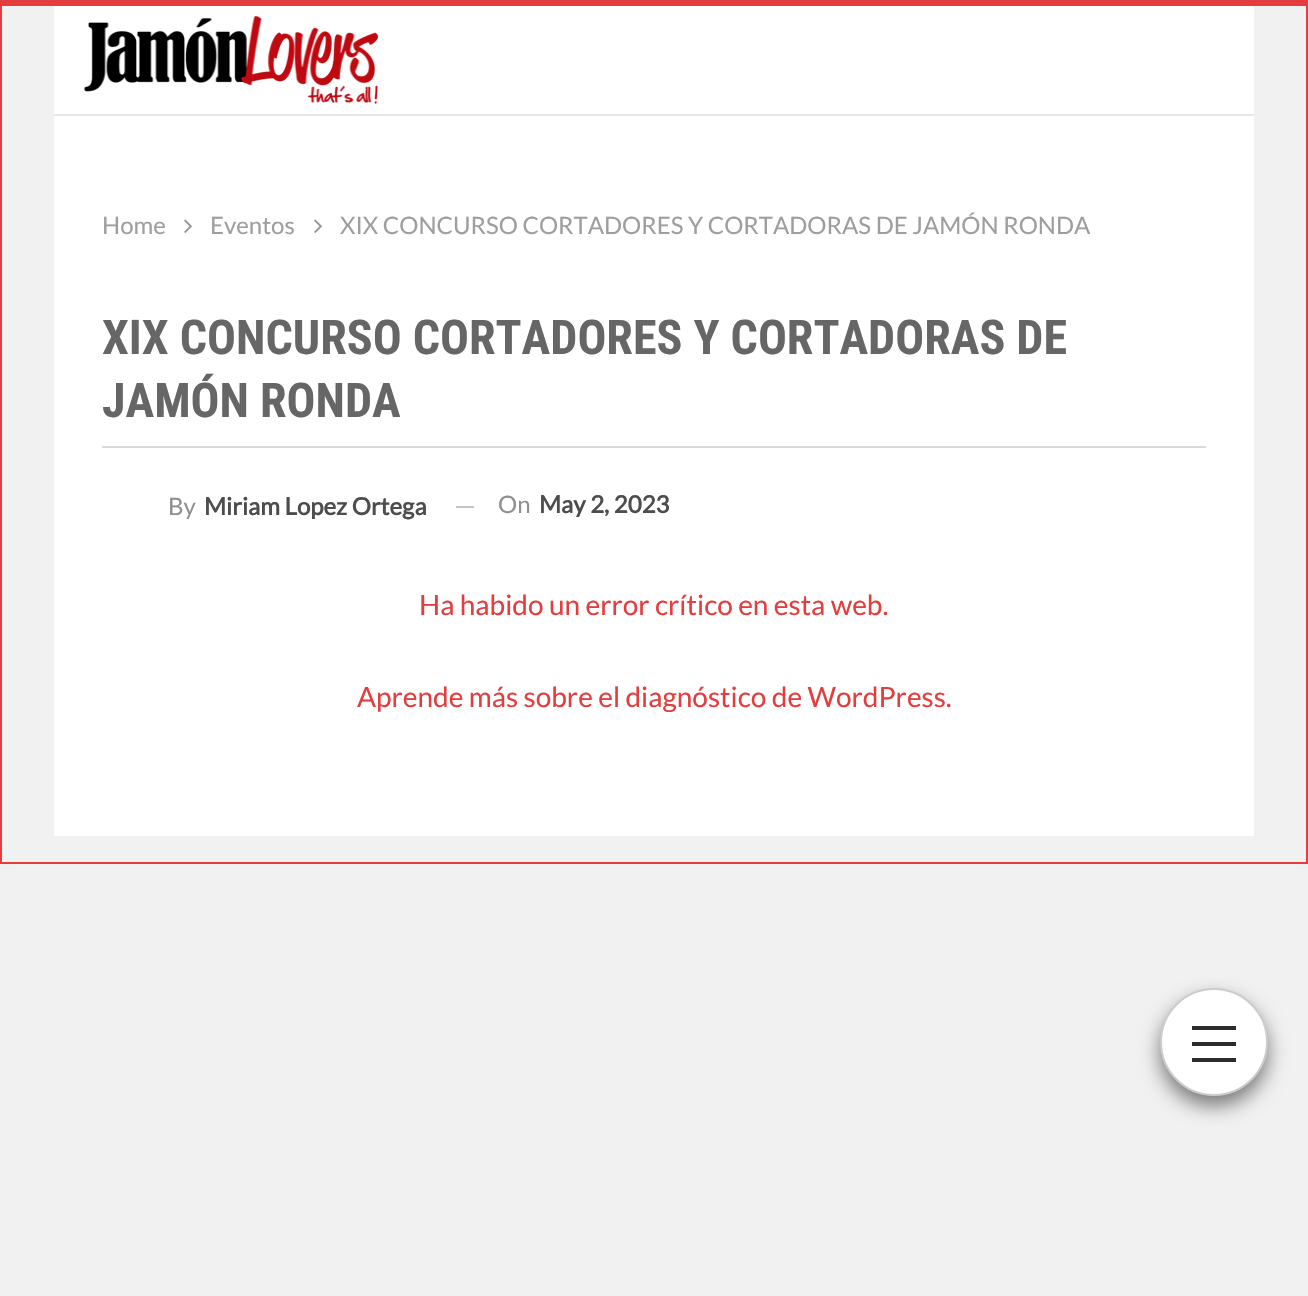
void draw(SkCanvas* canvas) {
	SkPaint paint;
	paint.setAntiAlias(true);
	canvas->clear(0xfff1f1f1);
	paint.setColor(0xffe33d3d);
	canvas->drawRect(SkRect::MakeXYWH(0, 0, 1308, 6), paint);
	canvas->drawRect(SkRect::MakeXYWH(1306, 0, 2, 864), paint);
	canvas->drawRect(SkRect::MakeXYWH(0, 862, 1308, 2), paint);
	canvas->drawRect(SkRect::MakeXYWH(0, 0, 2, 864), paint);
	paint.setColor(0xffffffff);
	canvas->drawRect(SkRect::MakeXYWH(54, 6, 1200, 830), paint);
	paint.setColor(0xffe5e5e5);
	canvas->drawRect(SkRect::MakeXYWH(54, 114, 1200, 2), paint);
	canvas->drawImageRect(SkImages::DeferredFromEncodedData(SkData::MakeFromFileName("img1.png")), SkRect::MakeXYWH(84, 16, 294, 88), SkSamplingOptions());
	paint.setColor(0x80000000);
	paint.setMaskFilter(SkMaskFilter::MakeBlur(kNormal_SkBlurStyle, 10));
	canvas->drawRoundRect(SkRect::MakeXYWH(1160, 998, 108, 108), 54, 54, paint);
	paint.setMaskFilter(nullptr);
	paint.setColor(0xffffffff);
	canvas->drawCircle(1214, 1042, 53, paint);
	paint.setStroke(true);
	paint.setStrokeWidth(2);
	paint.setColor(0xffcccccc);
	canvas->drawCircle(1214, 1042, 53, paint);
	paint.setStroke(false);
	paint.setColor(0xff2c2c2c);
	canvas->drawRect(SkRect::MakeXYWH(1192, 1042, 44, 4), paint);
	canvas->drawRect(SkRect::MakeXYWH(1192, 1026, 44, 4), paint);
	canvas->drawRect(SkRect::MakeXYWH(1192, 1058, 44, 4), paint);
	SkFont f1(fontMgr->matchFamilyStyle("Lato", SkFontStyle::Normal()), 24);
	f1.setSubpixel(true);
	paint.setColor(0xff9e9e9e);
	canvas->drawString("Home", 102, 234, f1, paint);
	canvas->drawImageRect(SkImages::DeferredFromEncodedData(SkData::MakeFromFileName("img2.png")), SkRect::MakeXYWH(184, 219, 8, 14), SkSamplingOptions());
	canvas->drawString("Eventos", 210, 234, f1, paint);
	canvas->drawImageRect(SkImages::DeferredFromEncodedData(SkData::MakeFromFileName("img2.png")), SkRect::MakeXYWH(314, 219, 8, 14), SkSamplingOptions());
	canvas->drawString("XIX CONCURSO CORTADORES Y CORTADORAS DE JAMÓN RONDA", 340, 234, f1, paint);
	paint.setColor(0xffdadada);
	canvas->drawRect(SkRect::MakeXYWH(102, 446, 1104, 2), paint);
	SkFont f2(fontMgr->matchFamilyStyle("Roboto Condensed", SkFontStyle::Bold()), 48);
	f2.setSubpixel(true);
	paint.setColor(0xff666666);
	canvas->drawString("XIX CONCURSO CORTADORES Y CORTADORAS DE", 102, 354, f2, paint);
	canvas->drawString("JAMÓN RONDA", 102, 417, f2, paint);
	paint.setColor(0xff8f8f8f);
	canvas->drawString("By", 168, 515, f1, paint);
	SkFont f3(fontMgr->matchFamilyStyle("Lato", SkFontStyle::Bold()), 24);
	f3.setSubpixel(true);
	paint.setColor(0xff4d4d4d);
	canvas->drawString("Miriam Lopez Ortega", 204, 515, f3, paint);
	paint.setColor(0xffc4c4c4);
	canvas->drawRect(SkRect::MakeXYWH(456, 506, 18, 2), paint);
	paint.setColor(0xff8f8f8f);
	canvas->drawString("On", 498, 513, f1, paint);
	paint.setColor(0xff4d4d4d);
	canvas->drawString("May 2, 2023", 539, 513, f3, paint);
	SkFont f4(fontMgr->matchFamilyStyle("Lato", SkFontStyle::Normal()), 28);
	f4.setSubpixel(true);
	paint.setColor(0xffe33d3d);
	canvas->drawString("Ha habido un error crítico en esta web.", 419, 615, f4, paint);
	canvas->drawString("Aprende más sobre el diagnóstico de WordPress.", 357, 707, f4, paint);
}
